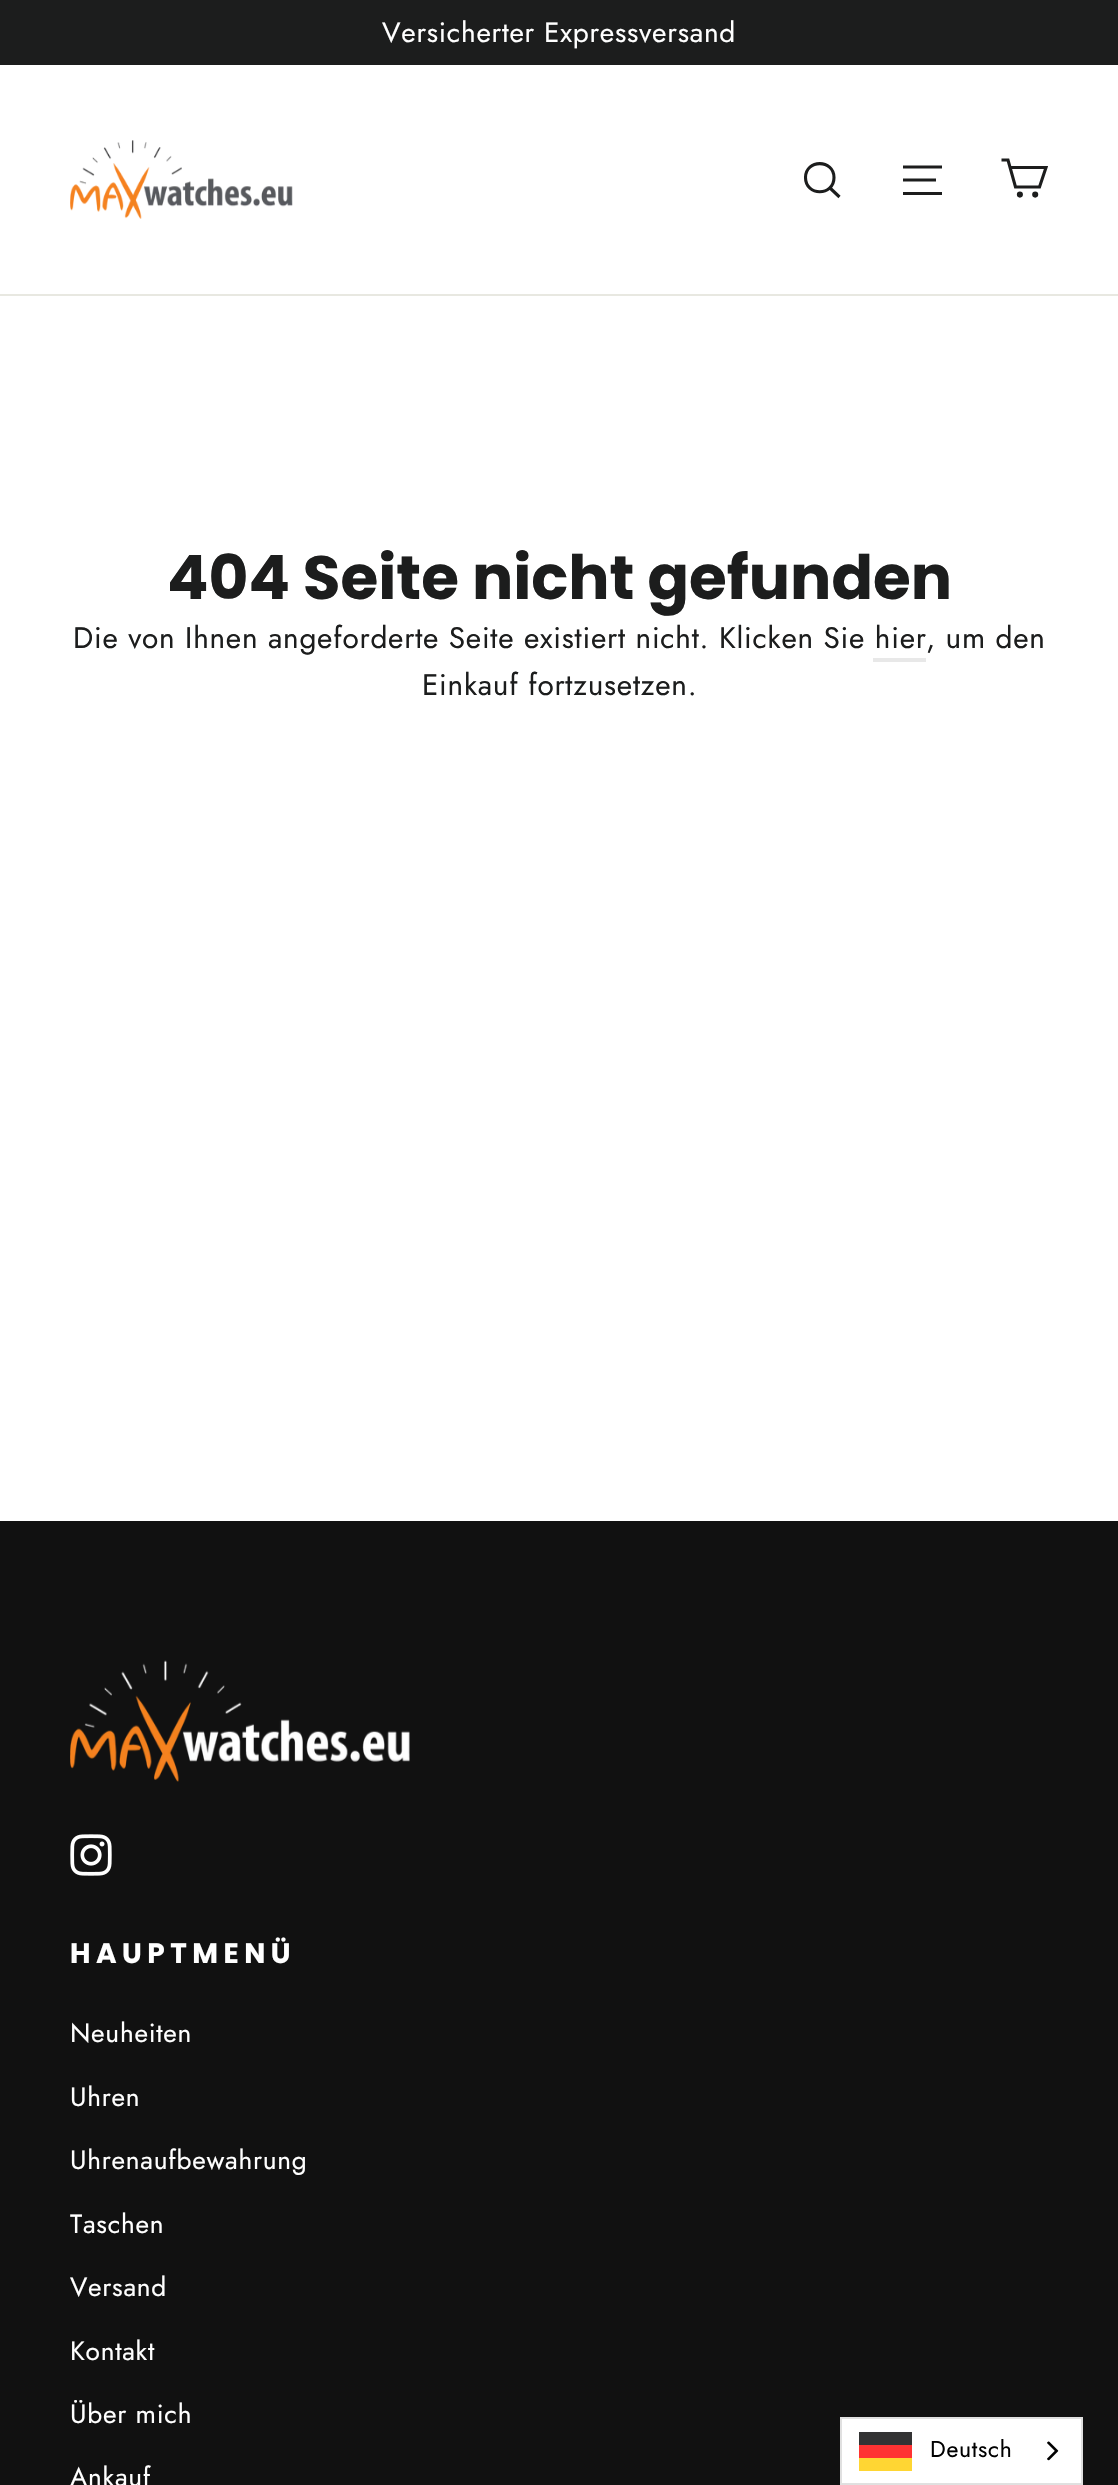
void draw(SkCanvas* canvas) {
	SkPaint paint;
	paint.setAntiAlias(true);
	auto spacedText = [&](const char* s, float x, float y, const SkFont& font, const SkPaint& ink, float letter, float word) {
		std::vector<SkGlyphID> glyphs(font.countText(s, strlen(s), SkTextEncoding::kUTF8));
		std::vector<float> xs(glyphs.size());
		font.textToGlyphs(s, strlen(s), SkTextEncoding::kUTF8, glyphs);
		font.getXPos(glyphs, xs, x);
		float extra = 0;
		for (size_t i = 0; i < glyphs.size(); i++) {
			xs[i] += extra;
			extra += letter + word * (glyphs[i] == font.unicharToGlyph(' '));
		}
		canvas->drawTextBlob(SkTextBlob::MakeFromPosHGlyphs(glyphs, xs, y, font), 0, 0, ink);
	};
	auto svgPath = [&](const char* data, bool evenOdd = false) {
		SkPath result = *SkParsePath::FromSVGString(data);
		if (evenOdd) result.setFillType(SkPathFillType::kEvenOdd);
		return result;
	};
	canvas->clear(0xffffffff);
	paint.setColor(0xff1c1d1d);
	canvas->drawRect(SkRect::MakeXYWH(0, 0, 1118, 65), paint);
	SkFont f1(fontMgr->matchFamilyStyle("Jost", SkFontStyle::Normal()), 28);
	f1.setSubpixel(true);
	paint.setColor(0xffffffff);
	spacedText("Versicherter Expressversand", 382, 42, f1, paint, 0.75, 0);
	paint.setColor(0xffe8e8e1);
	canvas->drawRect(SkRect::MakeXYWH(0, 294, 1118, 2), paint);
	canvas->drawImageRect(SkImages::DeferredFromEncodedData(SkData::MakeFromFileName("img1.png")), SkRect::MakeXYWH(70, 140, 223, 79), SkSamplingOptions());
	paint.setStroke(true);
	paint.setStrokeWidth(3.1);
	paint.setColor(0xff1c1d1d);
	canvas->drawPath(svgPath("M834 177.5C834 196.5 805.5 196.5 805.5 177.5C805.5 159 834 159 834 177.5ZM839.5 197L830 188"), paint);
	canvas->drawPath(svgPath("M903 167H942M903 180H936M903 193.5H942"), paint);
	canvas->drawPath(svgPath("M1010 167.5H1046L1039.5 187H1015.5L1008 160H1001.5"), paint);
	canvas->drawCircle(1019.9, 194.6, 1.5, paint);
	canvas->drawCircle(1035.2, 194.6, 1.5, paint);
	SkFont f2(fontMgr->matchFamilyStyle("Poppins", SkFontStyle::Bold()), 61.25);
	f2.setSubpixel(true);
	paint.setStroke(false);
	canvas->drawString("404 Seite nicht gefunden", 167, 599, f2, paint);
	SkFont f3(fontMgr->matchFamilyStyle("Jost", SkFontStyle::Normal()), 29.75);
	f3.setSubpixel(true);
	spacedText("Die von Ihnen angeforderte Seite existiert nicht. Klicken Sie hier", 73, 648, f3, paint, 0.75, 0);
	spacedText(", um den", 926, 648, f3, paint, 0.75, 0);
	paint.setColor(0xffe8e8e8);
	canvas->drawRect(SkRect::MakeXYWH(873, 658, 53, 4), paint);
	paint.setColor(0xff1c1d1d);
	spacedText("Einkauf fortzusetzen.", 422, 695, f3, paint, 0.75, 0);
	paint.setColor(0xff111111);
	canvas->drawRect(SkRect::MakeXYWH(0, 1521, 1118, 964), paint);
	canvas->drawImageRect(SkImages::DeferredFromEncodedData(SkData::MakeFromFileName("img2.png")), SkRect::MakeXYWH(70, 1660, 340, 122), SkSamplingOptions());
	canvas->drawImageRect(SkImages::DeferredFromEncodedData(SkData::MakeFromFileName("img3.png")), SkRect::MakeXYWH(70, 1834, 42, 42), SkSamplingOptions());
	SkFont f4(fontMgr->matchFamilyStyle("Poppins", SkFontStyle::Bold()), 28);
	f4.setSubpixel(true);
	paint.setColor(0xffffffff);
	spacedText("HAUPTMENÜ", 70, 1963, f4, paint, 5.5, 0);
	SkFont f5(fontMgr->matchFamilyStyle("Jost", SkFontStyle::Normal()), 26.25);
	f5.setSubpixel(true);
	spacedText("Neuheiten", 70, 2042, f5, paint, 0.75, 0);
	spacedText("Uhren", 70, 2106, f5, paint, 0.75, 0);
	spacedText("Uhrenaufbewahrung", 70, 2169, f5, paint, 0.75, 0);
	spacedText("Taschen", 70, 2233, f5, paint, 0.75, 0);
	spacedText("Versand", 70, 2296, f5, paint, 0.75, 0);
	spacedText("Kontakt", 70, 2360, f5, paint, 0.75, 0);
	spacedText("Über mich", 70, 2423, f5, paint, 0.75, 0);
	spacedText("Ankauf", 70, 2486, f5, paint, 0.75, 0);
	canvas->drawRect(SkRect::MakeXYWH(841, 2418, 241, 66), paint);
	paint.setStroke(true);
	paint.setStrokeWidth(2);
	paint.setColor(0xffe0e0e0);
	canvas->drawRect(SkRect::MakeXYWH(841, 2418, 241, 66), paint);
	paint.setStroke(false);
	paint.setColor(0xffffd633);
	canvas->drawRect(SkRect::MakeXYWH(859, 2458, 53, 13), paint);
	paint.setColor(0xff333334);
	canvas->drawRect(SkRect::MakeXYWH(859, 2432, 53, 13), paint);
	paint.setColor(0xffff3333);
	canvas->drawRect(SkRect::MakeXYWH(859, 2445, 53, 13), paint);
	SkFont f6(fontMgr->matchFamilyStyle("Jost", SkFontStyle::Normal()), 23);
	f6.setSubpixel(true);
	paint.setColor(0xff000000);
	spacedText("Deutsch", 930, 2457, f6, paint, 0.75, 0);
	canvas->drawImageRect(SkImages::DeferredFromEncodedData(SkData::MakeFromFileName("img4.png")), SkRect::MakeXYWH(1047, 2441, 12, 20), SkSamplingOptions());
}
